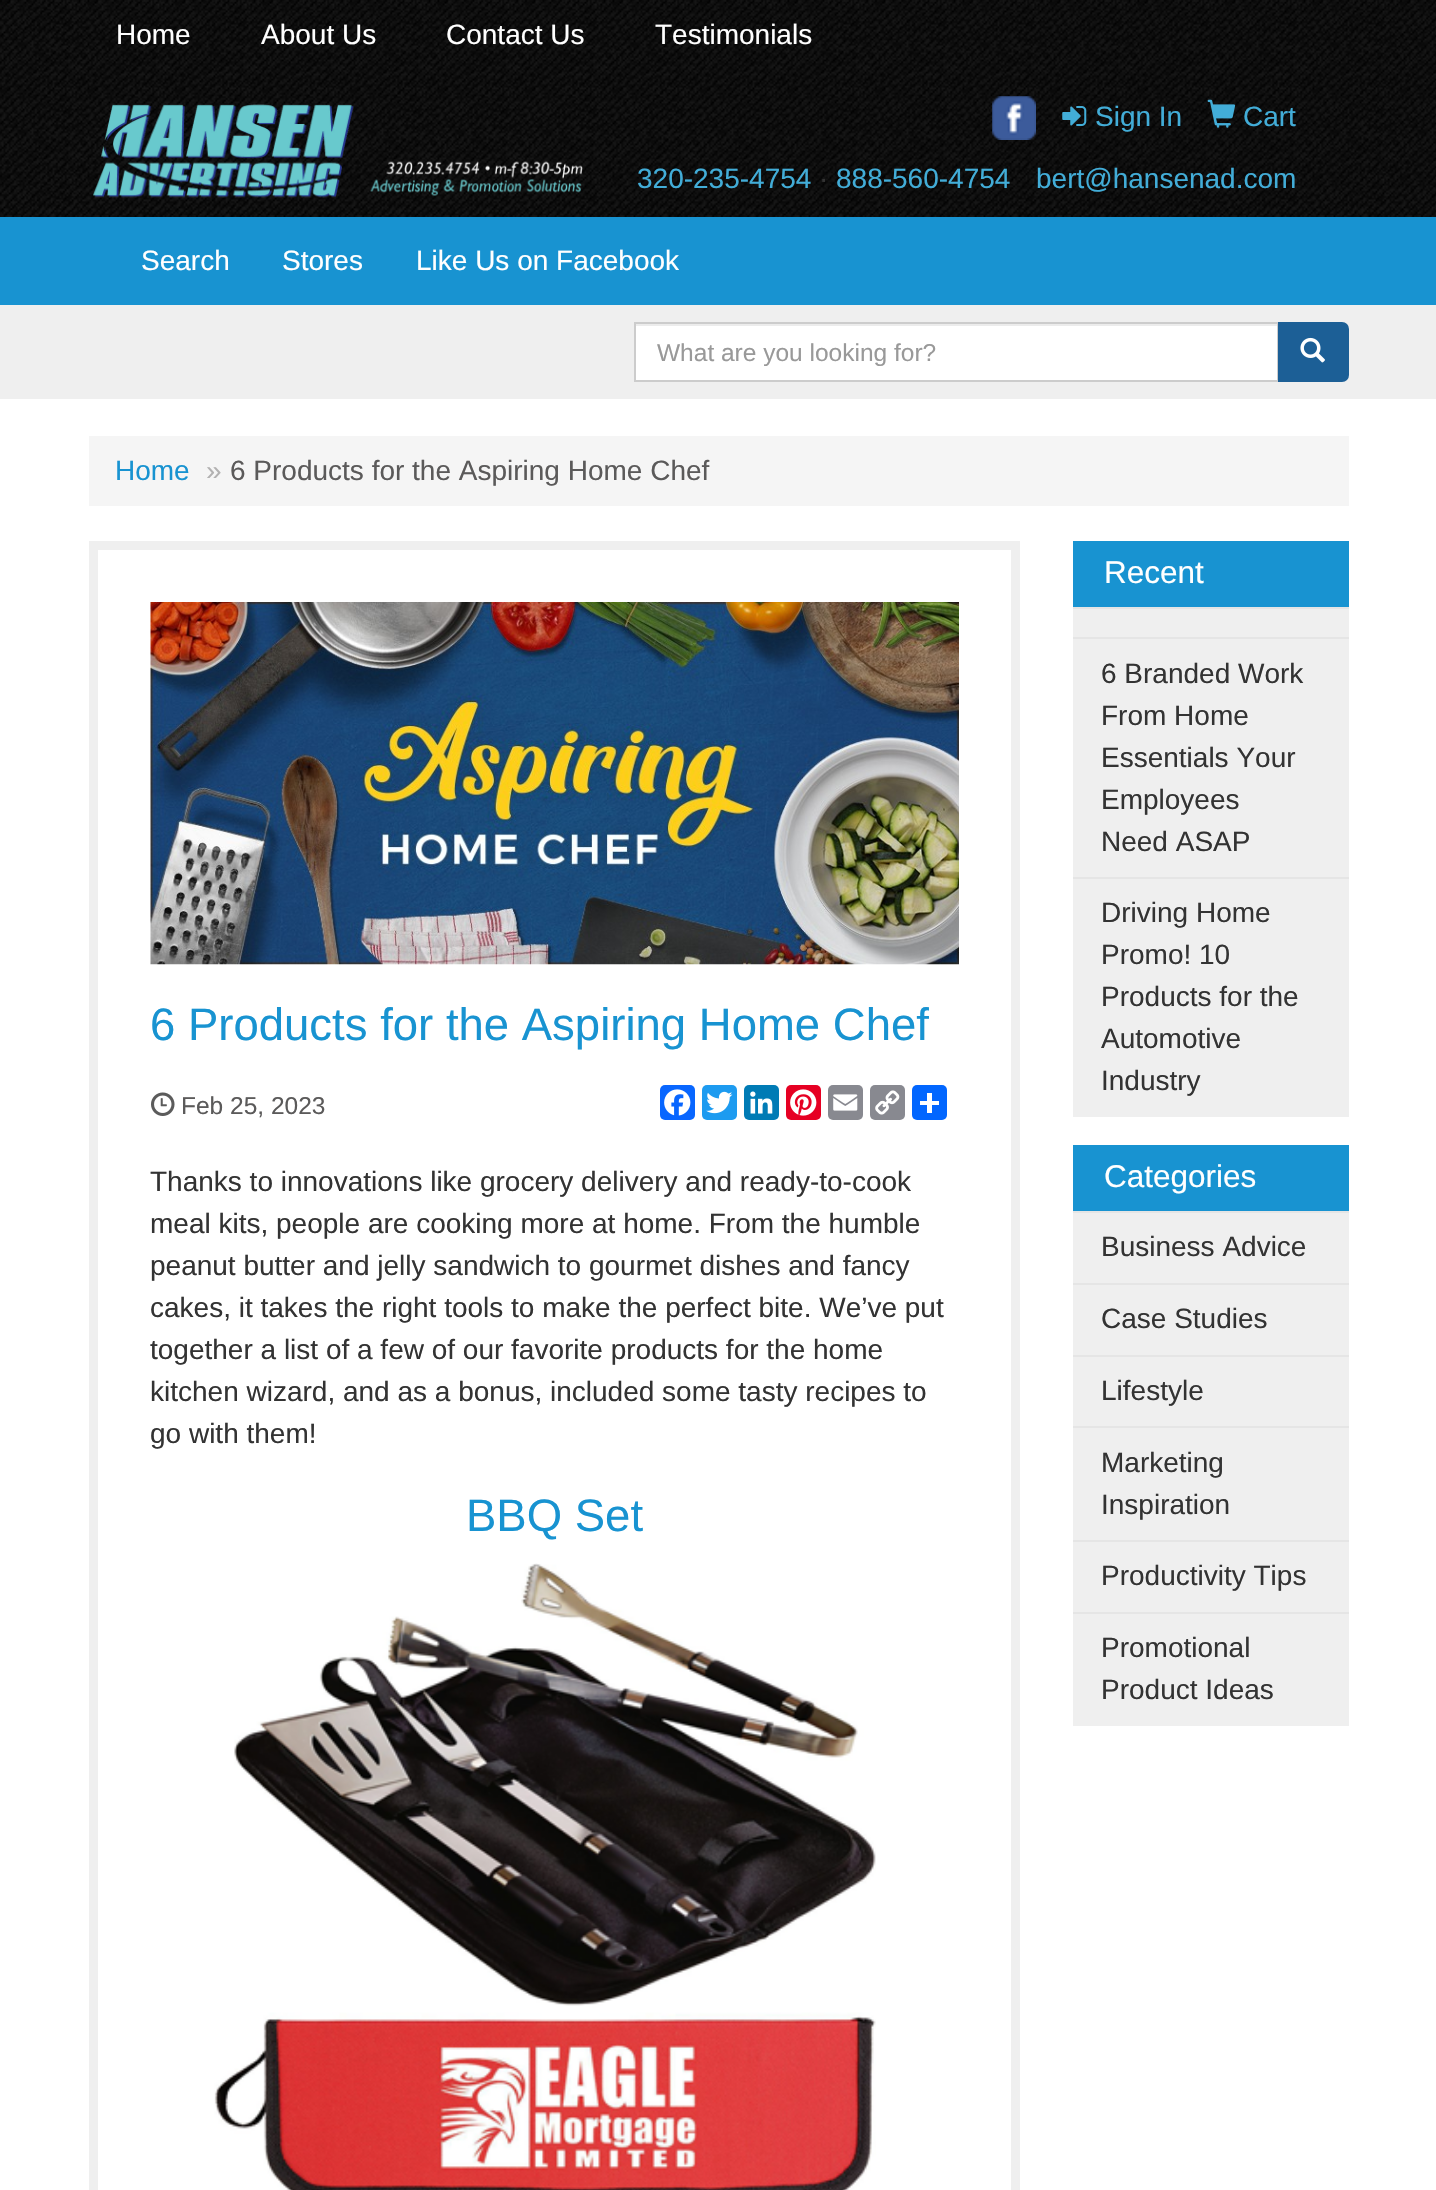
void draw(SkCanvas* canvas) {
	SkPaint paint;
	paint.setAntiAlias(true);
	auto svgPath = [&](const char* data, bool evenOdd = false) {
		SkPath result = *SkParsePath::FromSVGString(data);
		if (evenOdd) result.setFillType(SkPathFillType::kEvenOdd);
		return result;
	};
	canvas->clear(0xffffffff);
	canvas->drawImageRect(SkImages::DeferredFromEncodedData(SkData::MakeFromFileName("img1.png")), SkRect::MakeXYWH(0, 0, 1436, 217), SkSamplingOptions());
	SkFont f1(fontMgr->matchFamilyStyle("Liberation Sans", SkFontStyle::Normal()), 28);
	f1.setSubpixel(true);
	paint.setColor(0xffffffff);
	canvas->drawString("Home", 116, 44, f1, paint);
	canvas->drawString("About Us", 261, 44, f1, paint);
	canvas->drawString("Contact Us", 446, 44, f1, paint);
	canvas->drawString("Testimonials", 655, 44, f1, paint);
	canvas->drawImageRect(SkImages::DeferredFromEncodedData(SkData::MakeFromFileName("img2.png")), SkRect::MakeXYWH(93, 104, 490, 94), SkSamplingOptions());
	canvas->drawImageRect(SkImages::DeferredFromEncodedData(SkData::MakeFromFileName("img3.png")), SkRect::MakeXYWH(992, 96, 44, 44), SkSamplingOptions());
	canvas->drawImageRect(SkImages::DeferredFromEncodedData(SkData::MakeFromFileName("img4.png")), SkRect::MakeXYWH(1062, 106, 25, 20), SkSamplingOptions());
	paint.setColor(0xff42add8);
	canvas->drawString("Sign In", 1095, 126, f1, paint);
	canvas->drawImageRect(SkImages::DeferredFromEncodedData(SkData::MakeFromFileName("img5.png")), SkRect::MakeXYWH(1207, 99, 29, 29), SkSamplingOptions());
	canvas->drawString("Cart", 1243, 126, f1, paint);
	canvas->drawString("320-235-4754", 637, 188, f1, paint);
	paint.setColor(0xff333333);
	canvas->drawString("·", 819, 188, f1, paint);
	paint.setColor(0xff42add8);
	canvas->drawString("888-560-4754", 836, 188, f1, paint);
	canvas->drawString("bert@hansenad.com", 1036, 188, f1, paint);
	paint.setColor(0xff1893d1);
	canvas->drawRect(SkRect::MakeXYWH(0, 217, 1436, 88), paint);
	paint.setColor(0xffffffff);
	canvas->drawString("Search", 141, 270, f1, paint);
	canvas->drawString("Stores", 282, 270, f1, paint);
	canvas->drawString("Like Us on Facebook", 416, 270, f1, paint);
	paint.setColor(0xffefefef);
	canvas->drawRect(SkRect::MakeXYWH(0, 305, 1436, 94), paint);
	paint.setColor(0xffffffff);
	canvas->drawRect(SkRect::MakeXYWH(636, 326, 641, 54), paint);
	paint.setColor(0xffececec);
	canvas->drawRect(SkRect::MakeXYWH(635, 324, 643, 2), paint);
	paint.setStroke(true);
	paint.setStrokeWidth(2);
	paint.setColor(0xffcccccc);
	canvas->drawRect(SkRect::MakeXYWH(635, 323, 643, 58), paint);
	SkFont f2(fontMgr->matchFamilyStyle("Liberation Sans", SkFontStyle::Normal()), 24.5);
	f2.setSubpixel(true);
	paint.setStroke(false);
	paint.setColor(0xff999999);
	canvas->drawString("What are you looking for?", 657, 361, f2, paint);
	paint.setColor(0xff1c5f96);
	canvas->drawPath(svgPath("M1279 323H1342C1345.5 323 1348 325.5 1348 329V375C1348 378.5 1345.5 381 1342 381H1279Z"), paint);
	paint.setStroke(true);
	canvas->drawPath(svgPath("M1279 323H1342C1345.5 323 1348 325.5 1348 329V375C1348 378.5 1345.5 381 1342 381H1279Z"), paint);
	canvas->drawImageRect(SkImages::DeferredFromEncodedData(SkData::MakeFromFileName("img6.png")), SkRect::MakeXYWH(1300, 337, 25, 26), SkSamplingOptions());
	paint.setStroke(false);
	paint.setColor(0xfff5f5f5);
	canvas->drawRect(SkRect::MakeXYWH(89, 436, 1260, 70), paint);
	paint.setColor(0xff1893d1);
	canvas->drawString("Home", 115, 480, f1, paint);
	paint.setColor(0xffb2b1b1);
	canvas->drawString("»", 206, 480, f1, paint);
	paint.setColor(0xff5b5a5a);
	canvas->drawString("6 Products for the Aspiring Home Chef", 230, 480, f1, paint);
	paint.setStroke(true);
	paint.setStrokeWidth(9);
	paint.setColor(0xffefefef);
	canvas->drawRect(SkRect::MakeXYWH(93.5, 545.5, 922, 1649), paint);
	canvas->drawImageRect(SkImages::DeferredFromEncodedData(SkData::MakeFromFileName("img7.png")), SkRect::MakeXYWH(150, 602, 809, 363), SkSamplingOptions());
	SkFont f3(fontMgr->matchFamilyStyle("Liberation Sans", SkFontStyle::Normal()), 45.5);
	f3.setSubpixel(true);
	paint.setStroke(false);
	paint.setColor(0xff1893d1);
	canvas->drawString("6 Products for the Aspiring Home Chef", 150, 1040, f3, paint);
	canvas->drawImageRect(SkImages::DeferredFromEncodedData(SkData::MakeFromFileName("img8.png")), SkRect::MakeXYWH(151, 1092, 24, 24), SkSamplingOptions());
	paint.setColor(0xff5b5a5a);
	canvas->drawString("Feb 25, 2023", 181, 1114, f2, paint);
	paint.setColor(0xff0866ff);
	canvas->drawRoundRect(SkRect::MakeXYWH(660, 1085, 35, 35), 5, 5, paint);
	canvas->drawImageRect(SkImages::DeferredFromEncodedData(SkData::MakeFromFileName("img9.png")), SkRect::MakeXYWH(664, 1089, 27, 27), SkSamplingOptions());
	paint.setColor(0xff1d9bf0);
	canvas->drawRoundRect(SkRect::MakeXYWH(702, 1085, 35, 35), 5, 5, paint);
	canvas->drawImageRect(SkImages::DeferredFromEncodedData(SkData::MakeFromFileName("img10.png")), SkRect::MakeXYWH(706, 1091, 27, 23), SkSamplingOptions());
	paint.setColor(0xff007bb5);
	canvas->drawRoundRect(SkRect::MakeXYWH(744, 1085, 35, 35), 5, 5, paint);
	canvas->drawImageRect(SkImages::DeferredFromEncodedData(SkData::MakeFromFileName("img11.png")), SkRect::MakeXYWH(750, 1091, 23, 23), SkSamplingOptions());
	paint.setColor(0xffe60023);
	canvas->drawRoundRect(SkRect::MakeXYWH(786, 1085, 35, 35), 5, 5, paint);
	canvas->drawImageRect(SkImages::DeferredFromEncodedData(SkData::MakeFromFileName("img12.png")), SkRect::MakeXYWH(790, 1089, 27, 27), SkSamplingOptions());
	paint.setColor(0xff888990);
	canvas->drawRoundRect(SkRect::MakeXYWH(828, 1085, 35, 35), 5, 5, paint);
	canvas->drawImageRect(SkImages::DeferredFromEncodedData(SkData::MakeFromFileName("img13.png")), SkRect::MakeXYWH(833, 1094, 25, 17), SkSamplingOptions());
	canvas->drawRoundRect(SkRect::MakeXYWH(870, 1085, 35, 35), 5, 5, paint);
	canvas->drawImageRect(SkImages::DeferredFromEncodedData(SkData::MakeFromFileName("img14.png")), SkRect::MakeXYWH(875, 1090, 25, 25), SkSamplingOptions());
	paint.setColor(0xff0166ff);
	canvas->drawRoundRect(SkRect::MakeXYWH(912, 1085, 35, 35), 5, 5, paint);
	paint.setColor(0xffffffff);
	canvas->drawRect(SkRect::MakeXYWH(927, 1093, 5, 20), paint);
	canvas->drawRect(SkRect::MakeXYWH(920, 1101, 19, 4), paint);
	paint.setColor(0xff333333);
	canvas->drawString("Thanks to innovations like grocery delivery and ready-to-cook", 150, 1191, f1, paint);
	canvas->drawString("meal kits, people are cooking more at home. From the humble", 150, 1233, f1, paint);
	canvas->drawString("peanut butter and jelly sandwich to gourmet dishes and fancy", 150, 1275, f1, paint);
	canvas->drawString("cakes, it takes the right tools to make the perfect bite. We’ve put", 150, 1317, f1, paint);
	canvas->drawString("together a list of a few of our favorite products for the home", 150, 1359, f1, paint);
	canvas->drawString("kitchen wizard, and as a bonus, included some tasty recipes to", 150, 1401, f1, paint);
	canvas->drawString("go with them!", 150, 1443, f1, paint);
	paint.setColor(0xff1893d1);
	canvas->drawString("BBQ Set", 466, 1531, f3, paint);
	canvas->drawImageRect(SkImages::DeferredFromEncodedData(SkData::MakeFromFileName("img15.png")), SkRect::MakeXYWH(214, 1563, 662, 627), SkSamplingOptions());
	canvas->drawRect(SkRect::MakeXYWH(1073, 541, 276, 66), paint);
	SkFont f4(fontMgr->matchFamilyStyle("Liberation Sans", SkFontStyle::Normal()), 31.5);
	f4.setSubpixel(true);
	paint.setColor(0xffffffff);
	canvas->drawString("Recent", 1104, 583, f4, paint);
	paint.setColor(0xffefefef);
	canvas->drawRect(SkRect::MakeXYWH(1073, 609, 276, 28), paint);
	paint.setColor(0xffe5e5e5);
	canvas->drawRect(SkRect::MakeXYWH(1073, 607, 276, 2), paint);
	paint.setColor(0xffefefef);
	canvas->drawRect(SkRect::MakeXYWH(1073, 639, 276, 238), paint);
	paint.setColor(0xffe5e5e5);
	canvas->drawRect(SkRect::MakeXYWH(1073, 637, 276, 2), paint);
	paint.setColor(0xff333333);
	canvas->drawString("6 Branded Work", 1101, 683, f1, paint);
	canvas->drawString("From Home", 1101, 725, f1, paint);
	canvas->drawString("Essentials Your", 1101, 767, f1, paint);
	canvas->drawString("Employees", 1101, 809, f1, paint);
	canvas->drawString("Need ASAP", 1101, 851, f1, paint);
	paint.setColor(0xffefefef);
	canvas->drawRect(SkRect::MakeXYWH(1073, 879, 276, 238), paint);
	paint.setColor(0xffe5e5e5);
	canvas->drawRect(SkRect::MakeXYWH(1073, 877, 276, 2), paint);
	paint.setColor(0xff333333);
	canvas->drawString("Driving Home", 1101, 922, f1, paint);
	canvas->drawString("Promo! 10", 1101, 964, f1, paint);
	canvas->drawString("Products for the", 1101, 1006, f1, paint);
	canvas->drawString("Automotive", 1101, 1048, f1, paint);
	canvas->drawString("Industry", 1101, 1090, f1, paint);
	paint.setColor(0xff1893d1);
	canvas->drawRect(SkRect::MakeXYWH(1073, 1145, 276, 66), paint);
	paint.setColor(0xffffffff);
	canvas->drawString("Categories", 1104, 1187, f4, paint);
	paint.setColor(0xffefefef);
	canvas->drawRect(SkRect::MakeXYWH(1073, 1213, 276, 70), paint);
	paint.setColor(0xffe5e5e5);
	canvas->drawRect(SkRect::MakeXYWH(1073, 1211, 276, 2), paint);
	paint.setColor(0xff333333);
	canvas->drawString("Business Advice", 1101, 1256, f1, paint);
	paint.setColor(0xffefefef);
	canvas->drawRect(SkRect::MakeXYWH(1073, 1285, 276, 70), paint);
	paint.setColor(0xffe5e5e5);
	canvas->drawRect(SkRect::MakeXYWH(1073, 1283, 276, 2), paint);
	paint.setColor(0xff333333);
	canvas->drawString("Case Studies", 1101, 1328, f1, paint);
	paint.setColor(0xffefefef);
	canvas->drawRect(SkRect::MakeXYWH(1073, 1357, 276, 69), paint);
	paint.setColor(0xffe5e5e5);
	canvas->drawRect(SkRect::MakeXYWH(1073, 1355, 276, 2), paint);
	paint.setColor(0xff333333);
	canvas->drawString("Lifestyle", 1101, 1400, f1, paint);
	paint.setColor(0xffefefef);
	canvas->drawRect(SkRect::MakeXYWH(1073, 1428, 276, 112), paint);
	paint.setColor(0xffe5e5e5);
	canvas->drawRect(SkRect::MakeXYWH(1073, 1426, 276, 2), paint);
	paint.setColor(0xff333333);
	canvas->drawString("Marketing", 1101, 1472, f1, paint);
	canvas->drawString("Inspiration", 1101, 1514, f1, paint);
	paint.setColor(0xffefefef);
	canvas->drawRect(SkRect::MakeXYWH(1073, 1542, 276, 70), paint);
	paint.setColor(0xffe5e5e5);
	canvas->drawRect(SkRect::MakeXYWH(1073, 1540, 276, 2), paint);
	paint.setColor(0xff333333);
	canvas->drawString("Productivity Tips", 1101, 1585, f1, paint);
	paint.setColor(0xffefefef);
	canvas->drawRect(SkRect::MakeXYWH(1073, 1614, 276, 112), paint);
	paint.setColor(0xffe5e5e5);
	canvas->drawRect(SkRect::MakeXYWH(1073, 1612, 276, 2), paint);
	paint.setColor(0xff333333);
	canvas->drawString("Promotional", 1101, 1657, f1, paint);
	canvas->drawString("Product Ideas", 1101, 1699, f1, paint);
}
